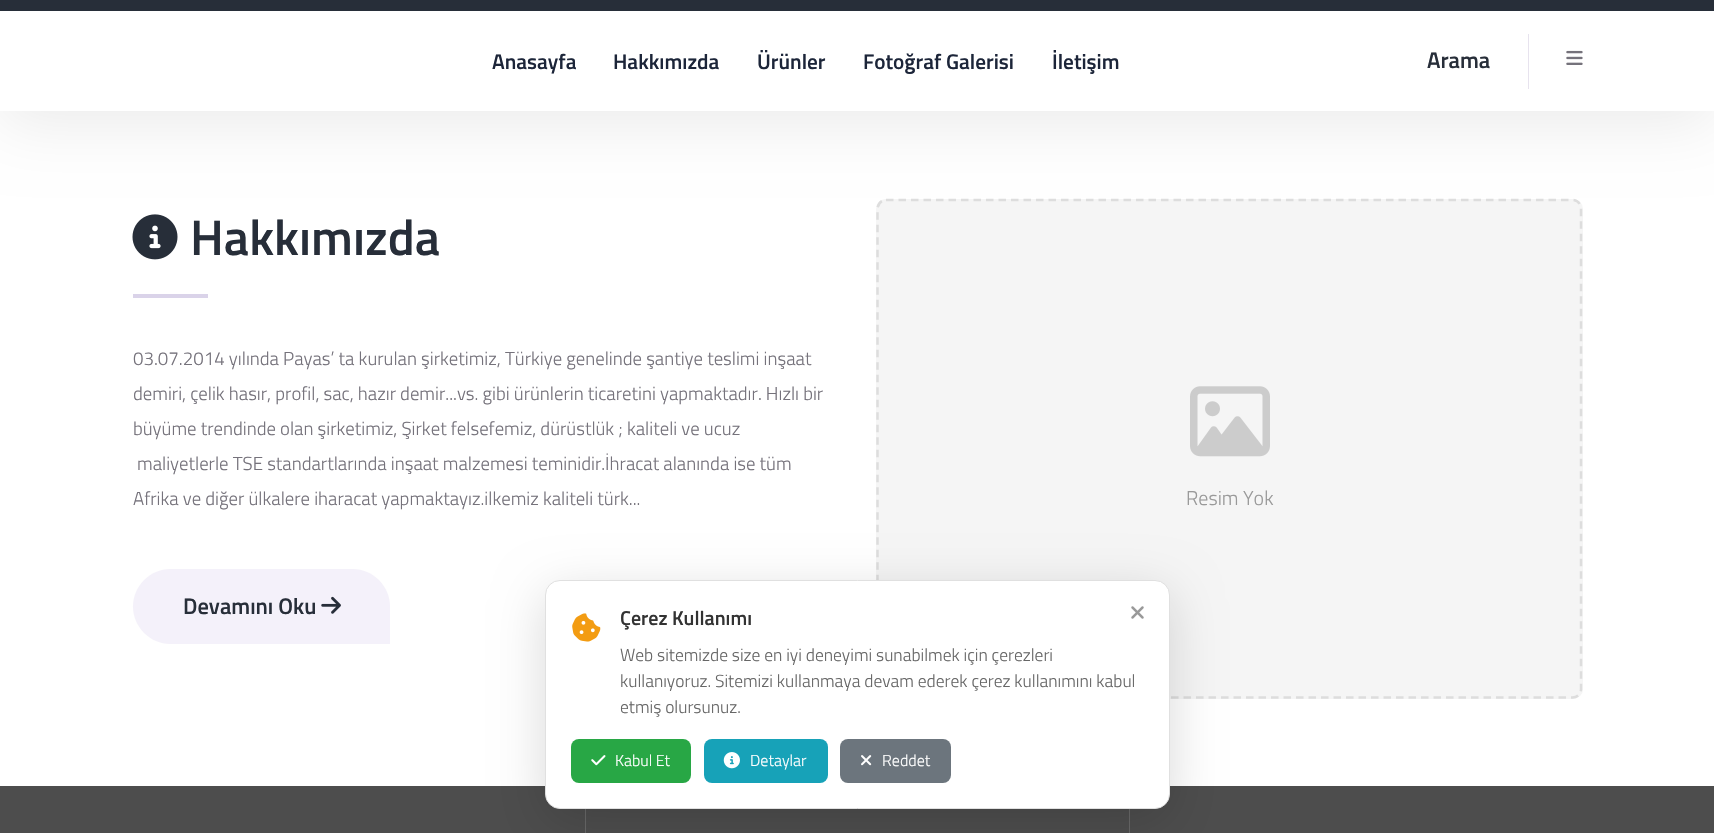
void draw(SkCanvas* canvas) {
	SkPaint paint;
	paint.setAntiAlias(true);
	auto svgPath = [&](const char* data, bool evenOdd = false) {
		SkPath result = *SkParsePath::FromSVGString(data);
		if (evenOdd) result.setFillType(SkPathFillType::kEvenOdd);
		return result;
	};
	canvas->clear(0xffffffff);
	canvas->drawImageRect(SkImages::DeferredFromEncodedData(SkData::MakeFromFileName("img2.png")), SkRect::MakeXYWH(132, 214, 46, 46), SkSamplingOptions());
	paint.setColor(0xfff5f5f5);
	canvas->drawRoundRect(SkRect::MakeXYWH(876, 199, 707, 500), 10, 10, paint);
	paint.setStroke(true);
	paint.setStrokeWidth(2.5);
	paint.setColor(0xffdddddd);
	paint.setPathEffect(SkDashPathEffect::Make({{7.5f, 5}}, 0));
	canvas->drawPath(svgPath("M886 200H1572.5C1577.5 200 1581 204 1581 209V689C1581 693.5 1577.5 697.5 1572.5 697.5H886C881.5 697.5 877.5 693.5 877.5 689V209C877.5 204 881.5 200 886 200Z"), paint);
	paint.setPathEffect(nullptr);
	paint.setStroke(false);
	paint.setColor(0x14000000);
	paint.setMaskFilter(SkMaskFilter::MakeBlur(kNormal_SkBlurStyle, 31));
	canvas->drawRect(SkRect::MakeXYWH(0, -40, 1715, 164), paint);
	paint.setMaskFilter(nullptr);
	paint.setColor(0xff272e39);
	canvas->drawRect(SkRect::MakeXYWH(0, 0, 1714, 11), paint);
	paint.setColor(0xffffffff);
	canvas->drawRect(SkRect::MakeXYWH(0, 11, 1714, 100), paint);
	SkFont f1(fontMgr->matchFamilyStyle("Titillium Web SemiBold", SkFontStyle(600, SkFontStyle::kNormal_Width, SkFontStyle::kUpright_Slant)), 21.25);
	f1.setSubpixel(true);
	paint.setColor(0xff1c2539);
	canvas->drawString("Anasayfa", 492, 69, f1, paint);
	canvas->drawString("Hakkımızda", 613, 69, f1, paint);
	canvas->drawString("Ürünler", 757, 69, f1, paint);
	canvas->drawString("Fotoğraf Galerisi", 863, 69, f1, paint);
	canvas->drawString("İletişim", 1052, 69, f1, paint);
	SkFont f2(fontMgr->matchFamilyStyle("Titillium Web SemiBold", SkFontStyle(600, SkFontStyle::kNormal_Width, SkFontStyle::kUpright_Slant)), 22.5);
	f2.setSubpixel(true);
	paint.setColor(0xff272e39);
	canvas->drawString("Arama", 1427, 68, f2, paint);
	paint.setColor(0xffe7e3ee);
	canvas->drawRect(SkRect::MakeXYWH(1528, 34, 1, 55), paint);
	canvas->drawImageRect(SkImages::DeferredFromEncodedData(SkData::MakeFromFileName("img1.png")), SkRect::MakeXYWH(1566, 50, 17, 15), SkSamplingOptions());
	SkFont f3(fontMgr->matchFamilyStyle("Titillium Web SemiBold", SkFontStyle(600, SkFontStyle::kNormal_Width, SkFontStyle::kUpright_Slant)), 50);
	f3.setSubpixel(true);
	paint.setColor(0xff272e39);
	canvas->drawString("Hakkımızda", 190, 255, f3, paint);
	paint.setColor(0xffdad3e9);
	canvas->drawRect(SkRect::MakeXYWH(133, 294, 75, 4), paint);
	SkFont f4(fontMgr->matchFamilyStyle("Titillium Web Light", SkFontStyle(300, SkFontStyle::kNormal_Width, SkFontStyle::kUpright_Slant)), 18.75);
	f4.setSubpixel(true);
	paint.setColor(0xff75727b);
	canvas->drawString("03.07.2014 yılında Payas’ ta kurulan şirketimiz, Türkiye genelinde şantiye teslimi inşaat", 133, 365, f4, paint);
	canvas->drawString("demiri, çelik hasır, profil, sac, hazır demir...vs. gibi ürünlerin ticaretini yapmaktadır. Hızlı bir", 133, 400, f4, paint);
	canvas->drawString("büyüme trendinde olan şirketimiz, Şirket felsefemiz, dürüstlük ; kaliteli ve ucuz", 133, 435, f4, paint);
	canvas->drawString("maliyetlerle TSE standartlarında inşaat malzemesi teminidir.İhracat alanında ise tüm", 137, 470, f4, paint);
	canvas->drawString("Afrika ve diğer ülkalere iharacat yapmaktayız.ilkemiz kaliteli türk...", 133, 505, f4, paint);
	paint.setColor(0xfff4f1fa);
	canvas->drawPath(svgPath("M170.5 569H352.5C373 569 390 586 390 606.5V644H170.5C150 644 133 627 133 606.5C133 586 150 569 170.5 569Z"), paint);
	paint.setColor(0xff272e39);
	canvas->drawString("Devamını Oku", 183, 614, f2, paint);
	canvas->drawImageRect(SkImages::DeferredFromEncodedData(SkData::MakeFromFileName("img3.png")), SkRect::MakeXYWH(321, 596, 20, 18), SkSamplingOptions());
	canvas->drawImageRect(SkImages::DeferredFromEncodedData(SkData::MakeFromFileName("img4.png")), SkRect::MakeXYWH(1190, 386, 80, 71), SkSamplingOptions());
	SkFont f5(fontMgr->matchFamilyStyle("Titillium Web Light", SkFontStyle(300, SkFontStyle::kNormal_Width, SkFontStyle::kUpright_Slant)), 20);
	f5.setSubpixel(true);
	paint.setColor(0xff999999);
	canvas->drawString("Resim Yok", 1186, 505, f5, paint);
	paint.setColor(0xff4d4d4d);
	canvas->drawRect(SkRect::MakeXYWH(0, 786, 1714, 47), paint);
	paint.setColor(0xff686868);
	canvas->drawRect(SkRect::MakeXYWH(585, 809, 1, 24), paint);
	canvas->drawRect(SkRect::MakeXYWH(1129, 809, 1, 24), paint);
	paint.setColor(0x26000000);
	paint.setMaskFilter(SkMaskFilter::MakeBlur(kNormal_SkBlurStyle, 25));
	canvas->drawRoundRect(SkRect::MakeXYWH(545, 593, 625, 228), 15, 15, paint);
	paint.setMaskFilter(nullptr);
	paint.setColor(0xffffffff);
	canvas->drawRoundRect(SkRect::MakeXYWH(545.5, 580.5, 624, 228), 14.5, 14.5, paint);
	paint.setStroke(true);
	paint.setStrokeWidth(1);
	paint.setColor(0xffe0e0e0);
	canvas->drawRoundRect(SkRect::MakeXYWH(545.5, 580.5, 624, 228), 14.5, 14.5, paint);
	canvas->drawImageRect(SkImages::DeferredFromEncodedData(SkData::MakeFromFileName("img5.png")), SkRect::MakeXYWH(572, 613, 29, 29), SkSamplingOptions());
	SkFont f6(fontMgr->matchFamilyStyle("Titillium Web SemiBold", SkFontStyle(600, SkFontStyle::kNormal_Width, SkFontStyle::kUpright_Slant)), 20);
	f6.setSubpixel(true);
	paint.setStroke(false);
	paint.setColor(0xff333333);
	canvas->drawString("Çerez Kullanımı", 620, 625, f6, paint);
	SkFont f7(fontMgr->matchFamilyStyle("Titillium Web Light", SkFontStyle(300, SkFontStyle::kNormal_Width, SkFontStyle::kUpright_Slant)), 17.5);
	f7.setSubpixel(true);
	paint.setColor(0xff666666);
	canvas->drawString("Web sitemizde size en iyi deneyimi sunabilmek için çerezleri", 620, 661, f7, paint);
	canvas->drawString("kullanıyoruz. Sitemizi kullanmaya devam ederek çerez kullanımını kabul", 620, 687, f7, paint);
	canvas->drawString("etmiş olursunuz.", 620, 713, f7, paint);
	paint.setColor(0xff28a745);
	canvas->drawRoundRect(SkRect::MakeXYWH(571, 739, 120, 44), 8, 8, paint);
	canvas->drawImageRect(SkImages::DeferredFromEncodedData(SkData::MakeFromFileName("img6.png")), SkRect::MakeXYWH(591, 755, 15, 11), SkSamplingOptions());
	SkFont f8(fontMgr->matchFamilyStyle("Titillium Web Light", SkFontStyle(300, SkFontStyle::kNormal_Width, SkFontStyle::kUpright_Slant)), 16);
	f8.setSubpixel(true);
	paint.setColor(0xffffffff);
	canvas->drawString("Kabul Et", 615, 766, f8, paint);
	paint.setColor(0xff17a2b8);
	canvas->drawRoundRect(SkRect::MakeXYWH(704, 739, 124, 44), 8, 8, paint);
	canvas->drawImageRect(SkImages::DeferredFromEncodedData(SkData::MakeFromFileName("img7.png")), SkRect::MakeXYWH(723, 752, 17, 17), SkSamplingOptions());
	paint.setColor(0xffffffff);
	canvas->drawString("Detaylar", 750, 766, f8, paint);
	paint.setColor(0xff6c757d);
	canvas->drawRoundRect(SkRect::MakeXYWH(840, 739, 111, 44), 8, 8, paint);
	canvas->drawImageRect(SkImages::DeferredFromEncodedData(SkData::MakeFromFileName("img8.png")), SkRect::MakeXYWH(861, 755, 11, 11), SkSamplingOptions());
	paint.setColor(0xffffffff);
	canvas->drawString("Reddet", 882, 766, f8, paint);
	canvas->drawImageRect(SkImages::DeferredFromEncodedData(SkData::MakeFromFileName("img9.png")), SkRect::MakeXYWH(1131, 606, 13, 13), SkSamplingOptions());
}
